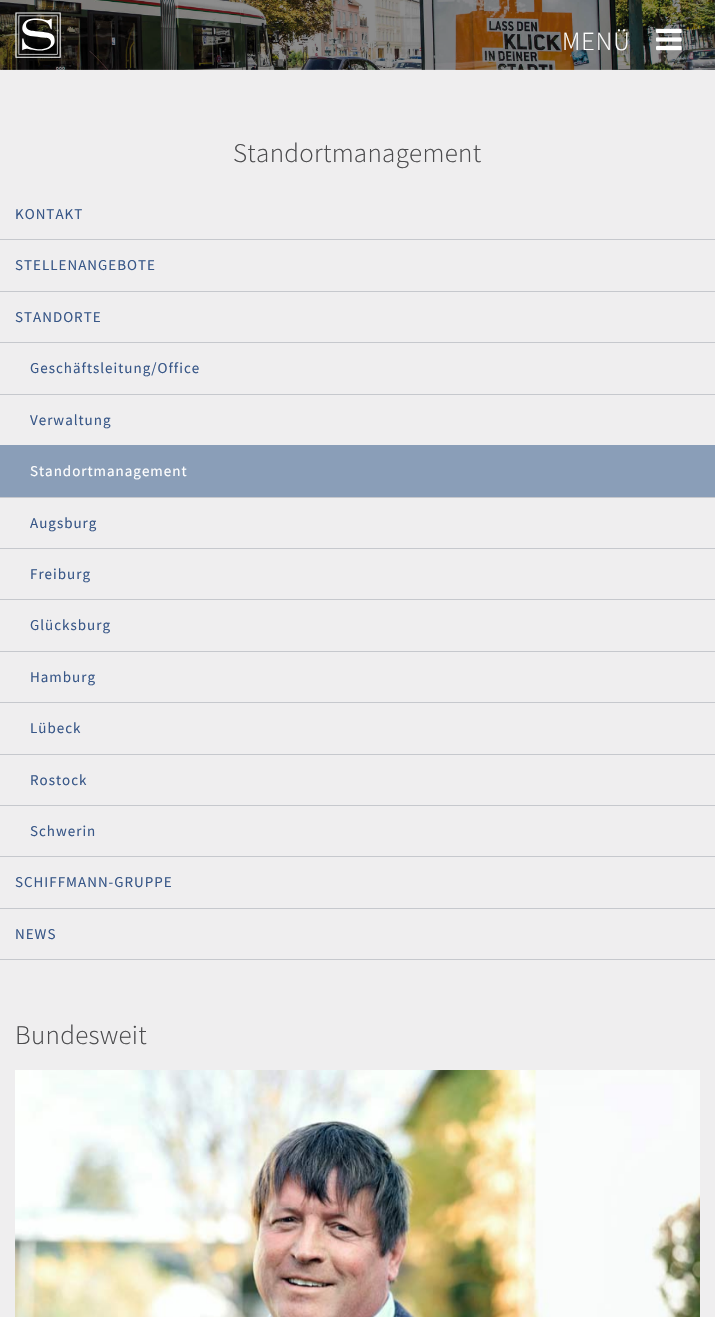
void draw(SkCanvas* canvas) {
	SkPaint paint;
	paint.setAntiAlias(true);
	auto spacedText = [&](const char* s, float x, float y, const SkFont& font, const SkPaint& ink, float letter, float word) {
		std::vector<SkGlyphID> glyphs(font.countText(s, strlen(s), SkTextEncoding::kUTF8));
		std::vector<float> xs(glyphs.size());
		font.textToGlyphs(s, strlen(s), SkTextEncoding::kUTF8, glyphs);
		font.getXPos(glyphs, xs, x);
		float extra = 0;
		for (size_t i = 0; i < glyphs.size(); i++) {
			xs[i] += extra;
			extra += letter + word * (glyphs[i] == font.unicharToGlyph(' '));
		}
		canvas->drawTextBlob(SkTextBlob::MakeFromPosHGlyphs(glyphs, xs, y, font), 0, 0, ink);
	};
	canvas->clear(0xffefeeef);
	canvas->drawImageRect(SkImages::DeferredFromEncodedData(SkData::MakeFromFileName("img1.png")), SkRect::MakeXYWH(0, 0, 715, 70), SkSamplingOptions());
	canvas->drawImageRect(SkImages::DeferredFromEncodedData(SkData::MakeFromFileName("img2.png")), SkRect::MakeXYWH(15, 12, 46, 46), SkSamplingOptions());
	SkFont f1(fontMgr->matchFamilyStyle("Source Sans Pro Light", SkFontStyle(300, SkFontStyle::kNormal_Width, SkFontStyle::kUpright_Slant)), 26);
	f1.setSubpixel(true);
	paint.setColor(0xffffffff);
	spacedText("MENÜ", 562, 50, f1, paint, 1, 0);
	canvas->drawImageRect(SkImages::DeferredFromEncodedData(SkData::MakeFromFileName("img3.png")), SkRect::MakeXYWH(656, 28, 26, 23), SkSamplingOptions());
	SkFont f2(fontMgr->matchFamilyStyle("Source Sans Pro Light", SkFontStyle(300, SkFontStyle::kNormal_Width, SkFontStyle::kUpright_Slant)), 27);
	f2.setSubpixel(true);
	paint.setColor(0xff4b4b4d);
	spacedText("Standortmanagement", 233, 162, f2, paint, 0.3, 0);
	paint.setColor(0xffc6c8cd);
	canvas->drawRect(SkRect::MakeXYWH(0, 239, 715, 1), paint);
	SkFont f3(fontMgr->matchFamilyStyle("Source Sans Pro", SkFontStyle::Normal()), 15);
	f3.setSubpixel(true);
	paint.setColor(0xff385788);
	spacedText("KONTAKT", 15, 219, f3, paint, 1, 0);
	paint.setColor(0xffc6c8cd);
	canvas->drawRect(SkRect::MakeXYWH(0, 291, 715, 1), paint);
	paint.setColor(0xff385788);
	spacedText("STELLENANGEBOTE", 15, 270, f3, paint, 1, 0);
	paint.setColor(0xffc6c8cd);
	canvas->drawRect(SkRect::MakeXYWH(0, 342, 715, 1), paint);
	paint.setColor(0xff385788);
	spacedText("STANDORTE", 15, 322, f3, paint, 1, 0);
	paint.setColor(0xffc6c8cd);
	canvas->drawRect(SkRect::MakeXYWH(0, 394, 715, 1), paint);
	paint.setColor(0xff385788);
	spacedText("Geschäftsleitung/Office", 30, 373, f3, paint, 1, 0);
	spacedText("Verwaltung", 30, 425, f3, paint, 1, 0);
	paint.setColor(0xff8a9eb8);
	canvas->drawRect(SkRect::MakeXYWH(0, 445, 715, 52), paint);
	paint.setColor(0xffc6c8cd);
	canvas->drawRect(SkRect::MakeXYWH(0, 497, 715, 1), paint);
	paint.setColor(0xffffffff);
	spacedText("Standortmanagement", 30, 476, f3, paint, 1, 0);
	paint.setColor(0xffc6c8cd);
	canvas->drawRect(SkRect::MakeXYWH(0, 548, 715, 1), paint);
	paint.setColor(0xff385788);
	spacedText("Augsburg", 30, 528, f3, paint, 1, 0);
	paint.setColor(0xffc6c8cd);
	canvas->drawRect(SkRect::MakeXYWH(0, 599, 715, 1), paint);
	paint.setColor(0xff385788);
	spacedText("Freiburg", 30, 579, f3, paint, 1, 0);
	paint.setColor(0xffc6c8cd);
	canvas->drawRect(SkRect::MakeXYWH(0, 651, 715, 1), paint);
	paint.setColor(0xff385788);
	spacedText("Glücksburg", 30, 630, f3, paint, 1, 0);
	paint.setColor(0xffc6c8cd);
	canvas->drawRect(SkRect::MakeXYWH(0, 702, 715, 1), paint);
	paint.setColor(0xff385788);
	spacedText("Hamburg", 30, 682, f3, paint, 1, 0);
	paint.setColor(0xffc6c8cd);
	canvas->drawRect(SkRect::MakeXYWH(0, 754, 715, 1), paint);
	paint.setColor(0xff385788);
	spacedText("Lübeck", 30, 733, f3, paint, 1, 0);
	paint.setColor(0xffc6c8cd);
	canvas->drawRect(SkRect::MakeXYWH(0, 805, 715, 1), paint);
	paint.setColor(0xff385788);
	spacedText("Rostock", 30, 785, f3, paint, 1, 0);
	paint.setColor(0xffc6c8cd);
	canvas->drawRect(SkRect::MakeXYWH(0, 856, 715, 1), paint);
	paint.setColor(0xff385788);
	spacedText("Schwerin", 30, 836, f3, paint, 1, 0);
	paint.setColor(0xffc6c8cd);
	canvas->drawRect(SkRect::MakeXYWH(0, 908, 715, 1), paint);
	paint.setColor(0xff385788);
	spacedText("SCHIFFMANN-GRUPPE", 15, 887, f3, paint, 1, 0);
	paint.setColor(0xffc6c8cd);
	canvas->drawRect(SkRect::MakeXYWH(0, 959, 715, 1), paint);
	paint.setColor(0xff385788);
	spacedText("NEWS", 15, 939, f3, paint, 1, 0);
	paint.setColor(0xff4b4b4d);
	spacedText("Bundesweit", 15, 1044, f2, paint, 0.3, 0);
	canvas->drawImageRect(SkImages::DeferredFromEncodedData(SkData::MakeFromFileName("img4.png")), SkRect::MakeXYWH(15, 1070, 685, 247), SkSamplingOptions());
}
